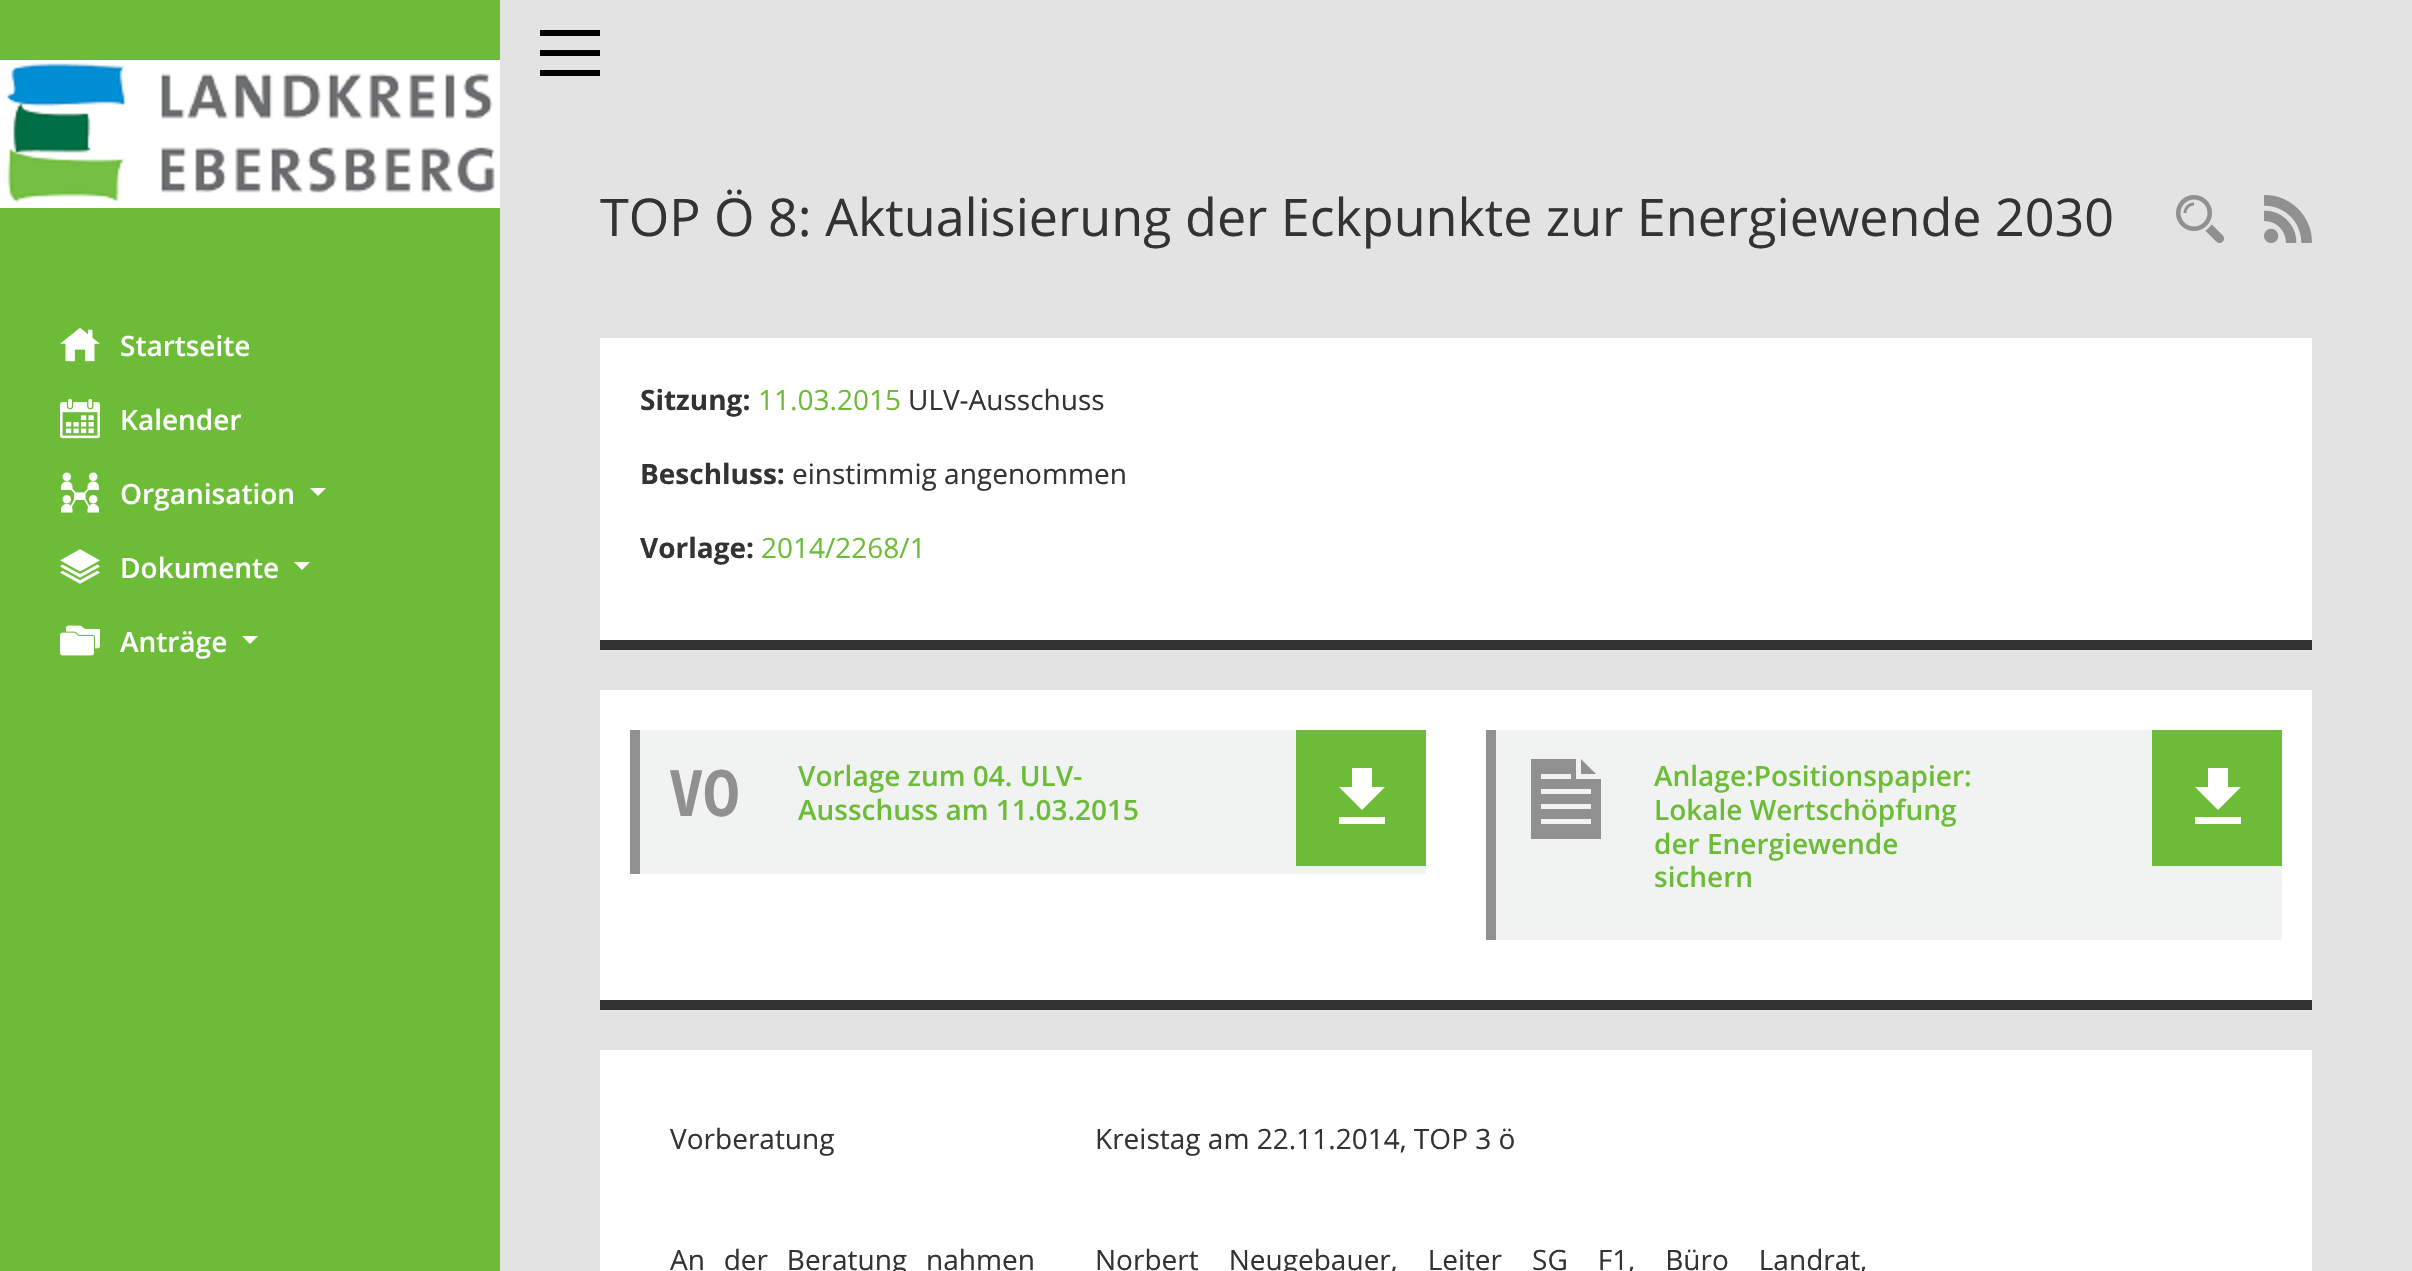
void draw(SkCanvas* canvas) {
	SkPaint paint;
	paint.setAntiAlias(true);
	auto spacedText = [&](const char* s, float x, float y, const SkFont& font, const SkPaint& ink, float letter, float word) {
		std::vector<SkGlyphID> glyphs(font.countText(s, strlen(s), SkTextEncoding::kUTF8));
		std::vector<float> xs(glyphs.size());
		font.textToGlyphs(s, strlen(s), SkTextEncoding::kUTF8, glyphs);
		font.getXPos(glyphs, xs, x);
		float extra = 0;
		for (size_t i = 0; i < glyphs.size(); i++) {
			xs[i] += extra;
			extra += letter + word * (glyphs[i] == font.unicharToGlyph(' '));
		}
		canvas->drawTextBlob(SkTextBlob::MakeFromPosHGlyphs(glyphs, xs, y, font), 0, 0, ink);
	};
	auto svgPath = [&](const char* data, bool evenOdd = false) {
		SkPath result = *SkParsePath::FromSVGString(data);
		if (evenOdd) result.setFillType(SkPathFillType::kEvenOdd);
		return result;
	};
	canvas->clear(0xffe3e3e3);
	paint.setColor(0xff6dbc38);
	canvas->drawRect(SkRect::MakeXYWH(0, 0, 500, 1271), paint);
	canvas->drawImageRect(SkImages::DeferredFromEncodedData(SkData::MakeFromFileName("img1.png")), SkRect::MakeXYWH(0, 60, 500, 148), SkSamplingOptions());
	canvas->drawImageRect(SkImages::DeferredFromEncodedData(SkData::MakeFromFileName("img2.png")), SkRect::MakeXYWH(60, 328, 40, 34), SkSamplingOptions());
	SkFont f1(fontMgr->matchFamilyStyle("Open Sans", SkFontStyle(600, SkFontStyle::kNormal_Width, SkFontStyle::kUpright_Slant)), 28);
	f1.setSubpixel(true);
	paint.setColor(0xffffffff);
	canvas->drawString("Startseite", 120, 356, f1, paint);
	canvas->drawImageRect(SkImages::DeferredFromEncodedData(SkData::MakeFromFileName("img3.png")), SkRect::MakeXYWH(60, 398, 40, 41), SkSamplingOptions());
	canvas->drawString("Kalender", 120, 430, f1, paint);
	canvas->drawImageRect(SkImages::DeferredFromEncodedData(SkData::MakeFromFileName("img4.png")), SkRect::MakeXYWH(61, 472, 38, 41), SkSamplingOptions());
	canvas->drawString("Organisation", 120, 504, f1, paint);
	canvas->drawPath(svgPath("M310 488H326L318 496Z"), paint);
	canvas->drawImageRect(SkImages::DeferredFromEncodedData(SkData::MakeFromFileName("img5.png")), SkRect::MakeXYWH(60, 549, 40, 35), SkSamplingOptions());
	canvas->drawString("Dokumente", 120, 578, f1, paint);
	canvas->drawPath(svgPath("M294 562H310L302 570Z"), paint);
	canvas->drawImageRect(SkImages::DeferredFromEncodedData(SkData::MakeFromFileName("img6.png")), SkRect::MakeXYWH(60, 625, 40, 31), SkSamplingOptions());
	canvas->drawString("Anträge", 120, 652, f1, paint);
	canvas->drawPath(svgPath("M242 636H258L250 644Z"), paint);
	paint.setColor(0xff000000);
	canvas->drawRect(SkRect::MakeXYWH(540, 30, 60, 6), paint);
	canvas->drawRect(SkRect::MakeXYWH(540, 50, 60, 6), paint);
	canvas->drawRect(SkRect::MakeXYWH(540, 70, 60, 6), paint);
	SkFont f2(fontMgr->matchFamilyStyle("Open Sans", SkFontStyle::Normal()), 52);
	f2.setSubpixel(true);
	paint.setColor(0xff333333);
	canvas->drawString("TOP Ö 8: Aktualisierung der Eckpunkte zur Energiewende 2030", 600, 236, f2, paint);
	canvas->drawImageRect(SkImages::DeferredFromEncodedData(SkData::MakeFromFileName("img7.png")), SkRect::MakeXYWH(2176, 195, 48, 48), SkSamplingOptions());
	canvas->drawImageRect(SkImages::DeferredFromEncodedData(SkData::MakeFromFileName("img8.png")), SkRect::MakeXYWH(2264, 195, 48, 48), SkSamplingOptions());
	paint.setColor(0xffffffff);
	canvas->drawRect(SkRect::MakeXYWH(600, 338, 1712, 302), paint);
	paint.setColor(0xff333333);
	canvas->drawRect(SkRect::MakeXYWH(600, 640, 1712, 10), paint);
	SkFont f3(fontMgr->matchFamilyStyle("Open Sans", SkFontStyle::Bold()), 28);
	f3.setSubpixel(true);
	canvas->drawString("Sitzung:", 640, 410, f3, paint);
	SkFont f4(fontMgr->matchFamilyStyle("Open Sans", SkFontStyle::Normal()), 28);
	f4.setSubpixel(true);
	paint.setColor(0xff6dbc38);
	canvas->drawString("11.03.2015", 758, 410, f4, paint);
	paint.setColor(0xff333333);
	canvas->drawString("ULV-Ausschuss", 908, 410, f4, paint);
	canvas->drawString("Beschluss:", 640, 484, f3, paint);
	canvas->drawString("einstimmig angenommen", 792, 484, f4, paint);
	canvas->drawString("Vorlage:", 640, 558, f3, paint);
	paint.setColor(0xff6dbc38);
	canvas->drawString("2014/2268/1", 761, 558, f4, paint);
	paint.setColor(0xffffffff);
	canvas->drawRect(SkRect::MakeXYWH(600, 690, 1712, 310), paint);
	paint.setColor(0xff333333);
	canvas->drawRect(SkRect::MakeXYWH(600, 1000, 1712, 10), paint);
	paint.setColor(0xfff0f3f2);
	canvas->drawRect(SkRect::MakeXYWH(640, 730, 786, 144), paint);
	paint.setColor(0xff909090);
	canvas->drawRect(SkRect::MakeXYWH(630, 730, 10, 144), paint);
	SkFont f5(fontMgr->matchFamilyStyle("Open Sans Condensed", SkFontStyle::Bold()), 64);
	f5.setSubpixel(true);
	canvas->drawString("VO", 670, 816, f5, paint);
	paint.setColor(0xff6dbc38);
	canvas->drawString("Vorlage zum 04. ULV-", 798, 786, f1, paint);
	canvas->drawString("Ausschuss am 11.03.2015", 798, 820, f1, paint);
	canvas->drawRect(SkRect::MakeXYWH(1296, 730, 130, 136), paint);
	paint.setColor(0xffffffff);
	canvas->drawPath(svgPath("M1385 787H1372V768H1352V787H1339L1362 810ZM1339 817V824H1385V817Z"), paint);
	paint.setColor(0xfff0f3f2);
	canvas->drawRect(SkRect::MakeXYWH(1496, 730, 786, 210), paint);
	paint.setColor(0xff909090);
	canvas->drawRect(SkRect::MakeXYWH(1486, 730, 10, 210), paint);
	canvas->drawPath(svgPath("M1596 774H1581V759ZM1601 779V839H1531V759H1576V779ZM1541 779H1571V774H1541ZM1591 819H1541V824H1591ZM1591 804H1541V809H1591ZM1591 789H1541V794H1591Z"), paint);
	paint.setColor(0xff6dbc38);
	canvas->drawString("Anlage:Positionspapier:", 1654, 786, f1, paint);
	canvas->drawString("Lokale Wertschöpfung", 1654, 820, f1, paint);
	canvas->drawString("der Energiewende", 1654, 854, f1, paint);
	canvas->drawString("sichern", 1654, 887, f1, paint);
	canvas->drawRect(SkRect::MakeXYWH(2152, 730, 130, 136), paint);
	paint.setColor(0xffffffff);
	canvas->drawPath(svgPath("M2241 787H2228V768H2208V787H2195L2218 810ZM2195 817V824H2241V817Z"), paint);
	canvas->drawRect(SkRect::MakeXYWH(600, 1050, 1712, 221), paint);
	paint.setColor(0xff333333);
	canvas->drawString("Vorberatung", 670, 1149, f4, paint);
	canvas->drawString("Kreistag am 22.11.2014, TOP 3 ö", 1095, 1149, f4, paint);
	spacedText("An der Beratung nahmen", 670, 1270, f4, paint, 0, 11.5);
	spacedText("Norbert Neugebauer, Leiter SG F1, Büro Landrat,", 1095, 1270, f4, paint, 0, 22.75);
}
